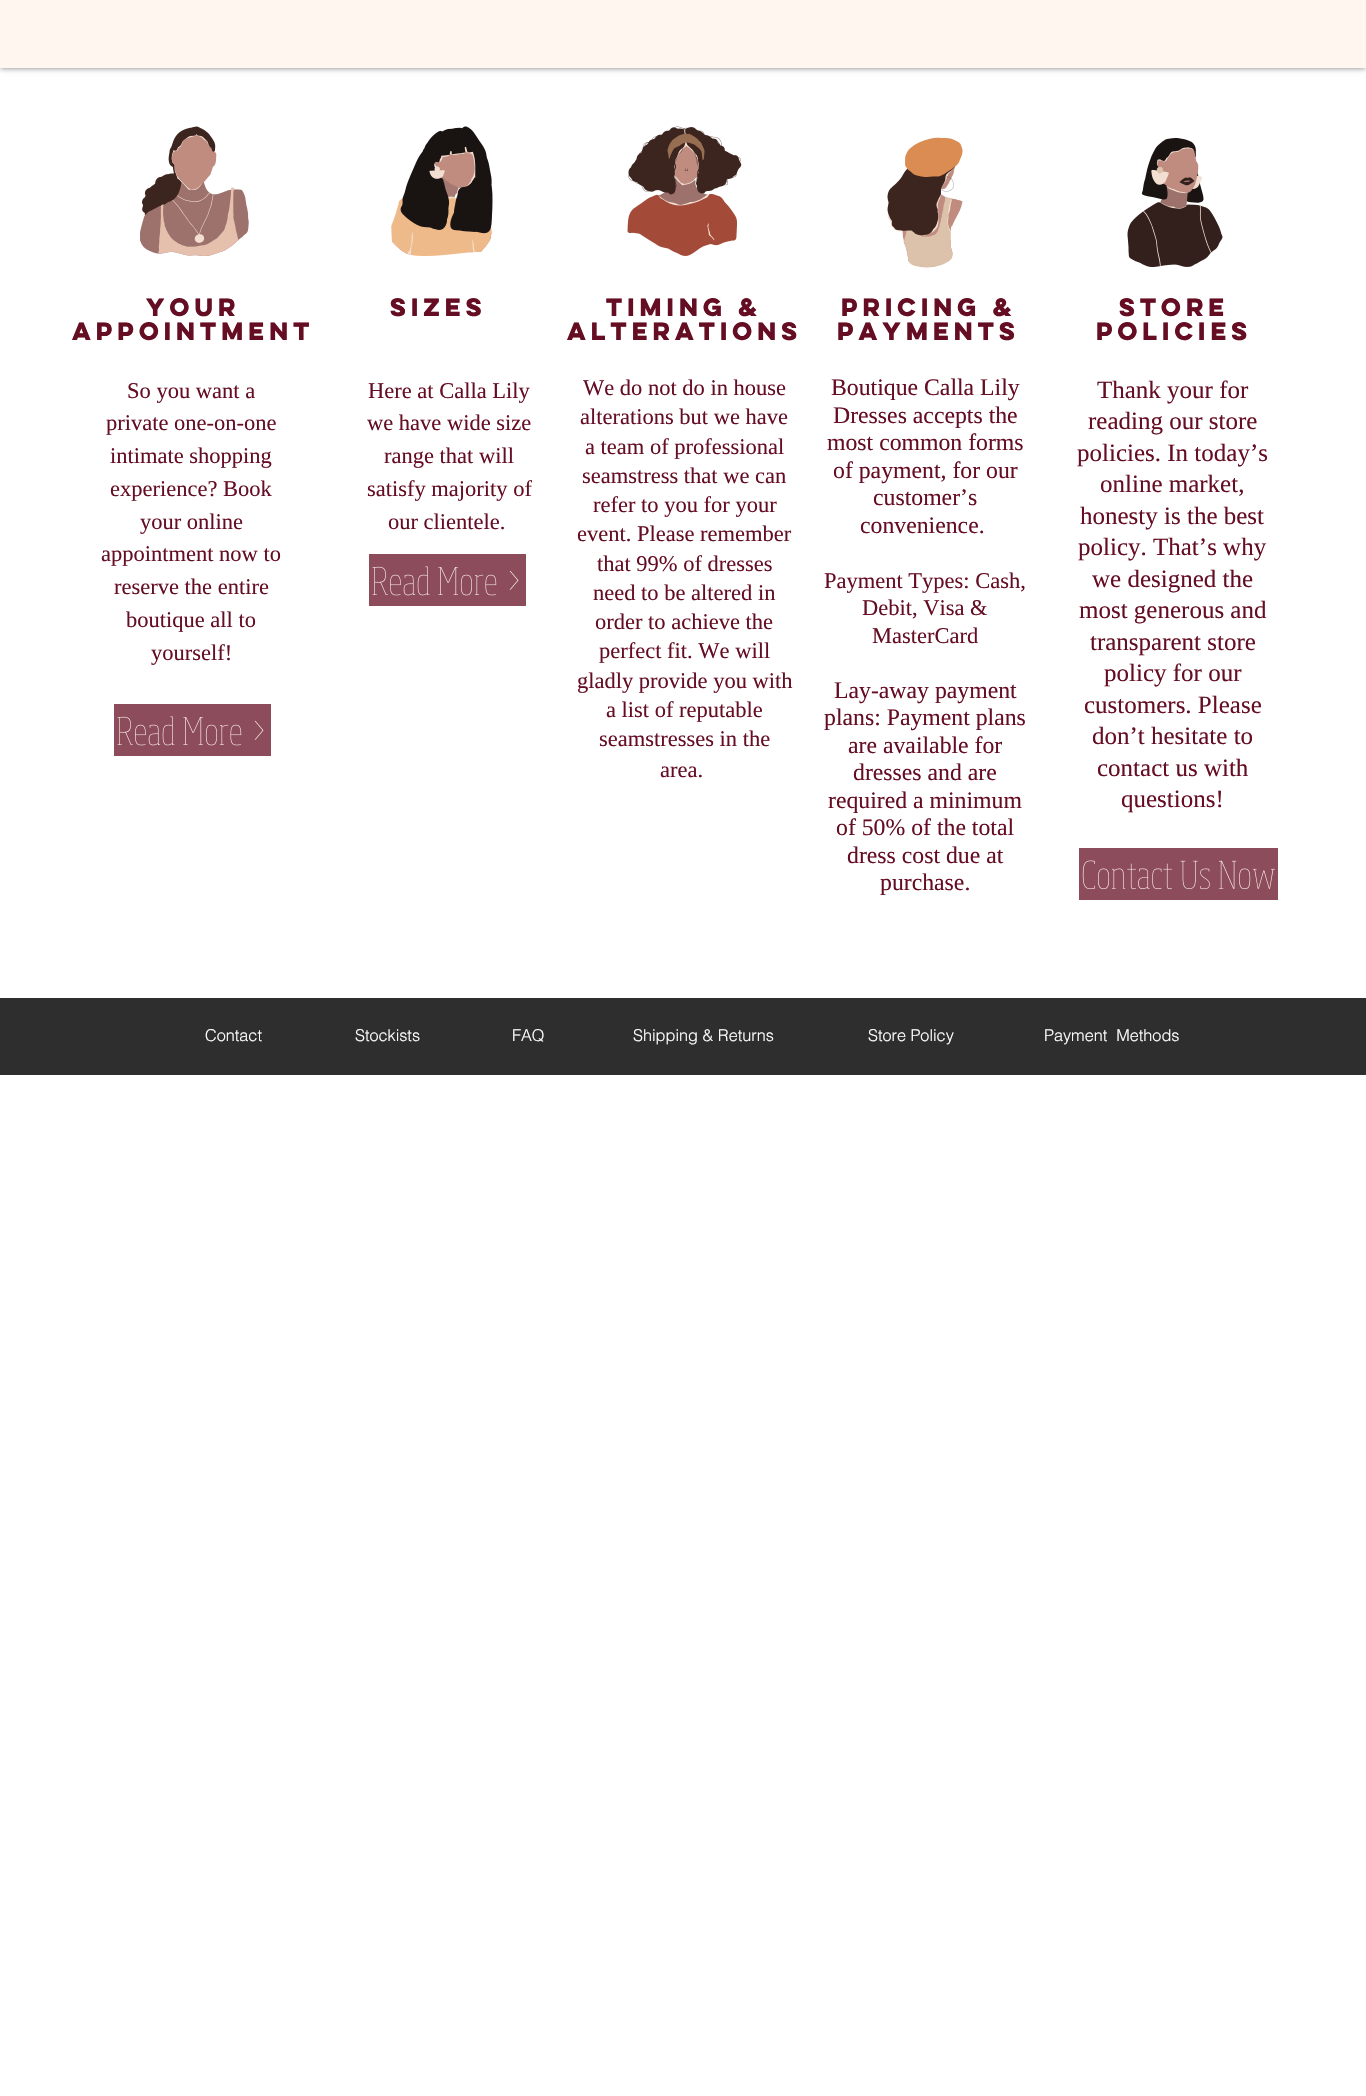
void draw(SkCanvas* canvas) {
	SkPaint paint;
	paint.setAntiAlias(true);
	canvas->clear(0xffffffff);
	paint.setColor(0x80000000);
	paint.setMaskFilter(SkMaskFilter::MakeBlur(kNormal_SkBlurStyle, 3));
	canvas->drawRect(SkRect::MakeXYWH(0, 0, 1366, 68), paint);
	paint.setMaskFilter(nullptr);
	paint.setColor(0xfffff6ef);
	canvas->drawRect(SkRect::MakeXYWH(0, 0, 1366, 68), paint);
	SkFont f1(fontMgr->matchFamilyStyle("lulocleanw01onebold", SkFontStyle::Bold()), 22.5);
	f1.setSubpixel(true);
	paint.setColor(0xff650d22);
	canvas->drawString("Your", 146, 316, f1, paint);
	canvas->drawString("Appointment", 72, 340, f1, paint);
	canvas->drawImageRect(SkImages::DeferredFromEncodedData(SkData::MakeFromFileName("img1.png")), SkRect::MakeXYWH(140, 126, 109, 130), SkSamplingOptions());
	SkFont f2(fontMgr->matchFamilyStyle("Liberation Serif", SkFontStyle::Normal()), 22.5);
	f2.setSubpixel(true);
	canvas->drawString("So you want a", 127, 398, f2, paint);
	canvas->drawString("private one-on-one", 106, 430, f2, paint);
	canvas->drawString("intimate shopping", 110, 463, f2, paint);
	canvas->drawString("experience? Book", 110, 496, f2, paint);
	canvas->drawString("your online", 140, 529, f2, paint);
	canvas->drawString("appointment now to", 101, 561, f2, paint);
	canvas->drawString("reserve the entire", 114, 594, f2, paint);
	canvas->drawString("boutique all to", 126, 627, f2, paint);
	canvas->drawString("yourself!", 151, 660, f2, paint);
	paint.setColor(0xff8d4c5b);
	canvas->drawRect(SkRect::MakeXYWH(114, 704, 157, 52), paint);
	canvas->drawImageRect(SkImages::DeferredFromEncodedData(SkData::MakeFromFileName("img2.png")), SkRect::MakeXYWH(117, 716, 147, 30), SkSamplingOptions());
	canvas->drawImageRect(SkImages::DeferredFromEncodedData(SkData::MakeFromFileName("img3.png")), SkRect::MakeXYWH(391, 126, 102, 130), SkSamplingOptions());
	paint.setColor(0xff650d22);
	canvas->drawString("Sizes", 390, 316, f1, paint);
	canvas->drawString("Here at Calla Lily", 368, 398, f2, paint);
	canvas->drawString("we have wide size", 367, 430, f2, paint);
	canvas->drawString("range that will", 384, 463, f2, paint);
	canvas->drawString("satisfy majority of", 367, 496, f2, paint);
	canvas->drawString("our clientele.", 388, 529, f2, paint);
	paint.setColor(0xff8d4c5b);
	canvas->drawRect(SkRect::MakeXYWH(369, 554, 157, 52), paint);
	canvas->drawImageRect(SkImages::DeferredFromEncodedData(SkData::MakeFromFileName("img2.png")), SkRect::MakeXYWH(372, 566, 147, 30), SkSamplingOptions());
	canvas->drawImageRect(SkImages::DeferredFromEncodedData(SkData::MakeFromFileName("img4.png")), SkRect::MakeXYWH(627, 126, 115, 130), SkSamplingOptions());
	paint.setColor(0xff650d22);
	canvas->drawString("Timing &", 606, 316, f1, paint);
	canvas->drawString("Alterations", 567, 340, f1, paint);
	canvas->drawString("We do not do in house", 583, 395, f2, paint);
	canvas->drawString("alterations but we have", 580, 424, f2, paint);
	canvas->drawString("a team of professional", 585, 454, f2, paint);
	canvas->drawString("seamstress that we can", 582, 483, f2, paint);
	canvas->drawString("refer to you for your", 593, 512, f2, paint);
	canvas->drawString("event. Please remember", 577, 541, f2, paint);
	canvas->drawString("that 99% of dresses", 597, 571, f2, paint);
	canvas->drawString("need to be altered in", 593, 600, f2, paint);
	canvas->drawString("order to achieve the", 595, 629, f2, paint);
	canvas->drawString("perfect fit. We will", 599, 658, f2, paint);
	canvas->drawString("gladly provide you with", 577, 688, f2, paint);
	canvas->drawString("a list of reputable", 606, 717, f2, paint);
	canvas->drawString("seamstresses in the", 599, 746, f2, paint);
	canvas->drawString("area.", 660, 777, f2, paint);
	canvas->drawImageRect(SkImages::DeferredFromEncodedData(SkData::MakeFromFileName("img5.png")), SkRect::MakeXYWH(887, 137, 76, 131), SkSamplingOptions());
	canvas->drawString("Pricing &", 841, 316, f1, paint);
	canvas->drawString("Payments", 837, 340, f1, paint);
	SkFont f3(fontMgr->matchFamilyStyle("Liberation Serif", SkFontStyle::Normal()), 23.75);
	f3.setSubpixel(true);
	canvas->drawString("Boutique Calla Lily", 831, 395, f3, paint);
	canvas->drawString("Dresses accepts the", 833, 423, f3, paint);
	canvas->drawString("most common forms", 827, 450, f3, paint);
	canvas->drawString("of payment, for our", 833, 478, f3, paint);
	canvas->drawString("customer’s", 873, 505, f3, paint);
	canvas->drawString("convenience.", 860, 533, f3, paint);
	canvas->drawString("Payment Types: Cash,", 824, 588, f2, paint);
	canvas->drawString("Debit, Visa &", 862, 615, f2, paint);
	canvas->drawString("MasterCard", 872, 643, f2, paint);
	canvas->drawString("Lay-away payment", 834, 698, f3, paint);
	canvas->drawString("plans: Payment plans", 824, 725, f3, paint);
	canvas->drawString("are available for", 848, 753, f3, paint);
	canvas->drawString("dresses and are", 853, 780, f3, paint);
	canvas->drawString("required a minimum", 828, 808, f3, paint);
	canvas->drawString("of 50% of the total", 836, 835, f3, paint);
	canvas->drawString("dress cost due at", 847, 863, f3, paint);
	canvas->drawString("purchase.", 880, 890, f3, paint);
	canvas->drawImageRect(SkImages::DeferredFromEncodedData(SkData::MakeFromFileName("img6.png")), SkRect::MakeXYWH(1127, 137, 96, 130), SkSamplingOptions());
	canvas->drawString("Store", 1119, 316, f1, paint);
	canvas->drawString("Policies", 1096, 340, f1, paint);
	SkFont f4(fontMgr->matchFamilyStyle("Liberation Serif", SkFontStyle::Normal()), 25);
	f4.setSubpixel(true);
	canvas->drawString("Thank your for", 1097, 398, f4, paint);
	canvas->drawString("reading our store", 1088, 429, f4, paint);
	canvas->drawString("policies. In today’s", 1077, 461, f4, paint);
	canvas->drawString("online market,", 1100, 492, f4, paint);
	canvas->drawString("honesty is the best", 1080, 524, f4, paint);
	canvas->drawString("policy. That’s why", 1078, 555, f4, paint);
	canvas->drawString("we designed the", 1092, 587, f4, paint);
	canvas->drawString("most generous and", 1079, 618, f4, paint);
	canvas->drawString("transparent store", 1090, 650, f4, paint);
	canvas->drawString("policy for our", 1104, 681, f4, paint);
	canvas->drawString("customers. Please", 1084, 713, f4, paint);
	canvas->drawString("don’t hesitate to", 1092, 744, f4, paint);
	canvas->drawString("contact us with", 1097, 776, f4, paint);
	canvas->drawString("questions!", 1121, 807, f4, paint);
	paint.setColor(0xff8d4c5b);
	canvas->drawRect(SkRect::MakeXYWH(1079, 848, 199, 52), paint);
	canvas->drawImageRect(SkImages::DeferredFromEncodedData(SkData::MakeFromFileName("img7.png")), SkRect::MakeXYWH(1082, 860, 193, 30), SkSamplingOptions());
	paint.setColor(0xff2f2e2e);
	canvas->drawRect(SkRect::MakeXYWH(0, 998, 1366, 77), paint);
	SkFont f5(fontMgr->matchFamilyStyle("helvetica", SkFontStyle(300, SkFontStyle::kNormal_Width, SkFontStyle::kUpright_Slant)), 16.25);
	f5.setSubpixel(true);
	paint.setColor(0xffffffff);
	canvas->drawString("Contact", 205, 1041, f5, paint);
	canvas->drawString("Stockists", 355, 1041, f5, paint);
	canvas->drawString("FAQ", 512, 1041, f5, paint);
	canvas->drawString("Shipping & Returns", 633, 1041, f5, paint);
	canvas->drawString("Store Policy", 868, 1041, f5, paint);
	canvas->drawString("Payment  Methods", 1044, 1041, f5, paint);
}
